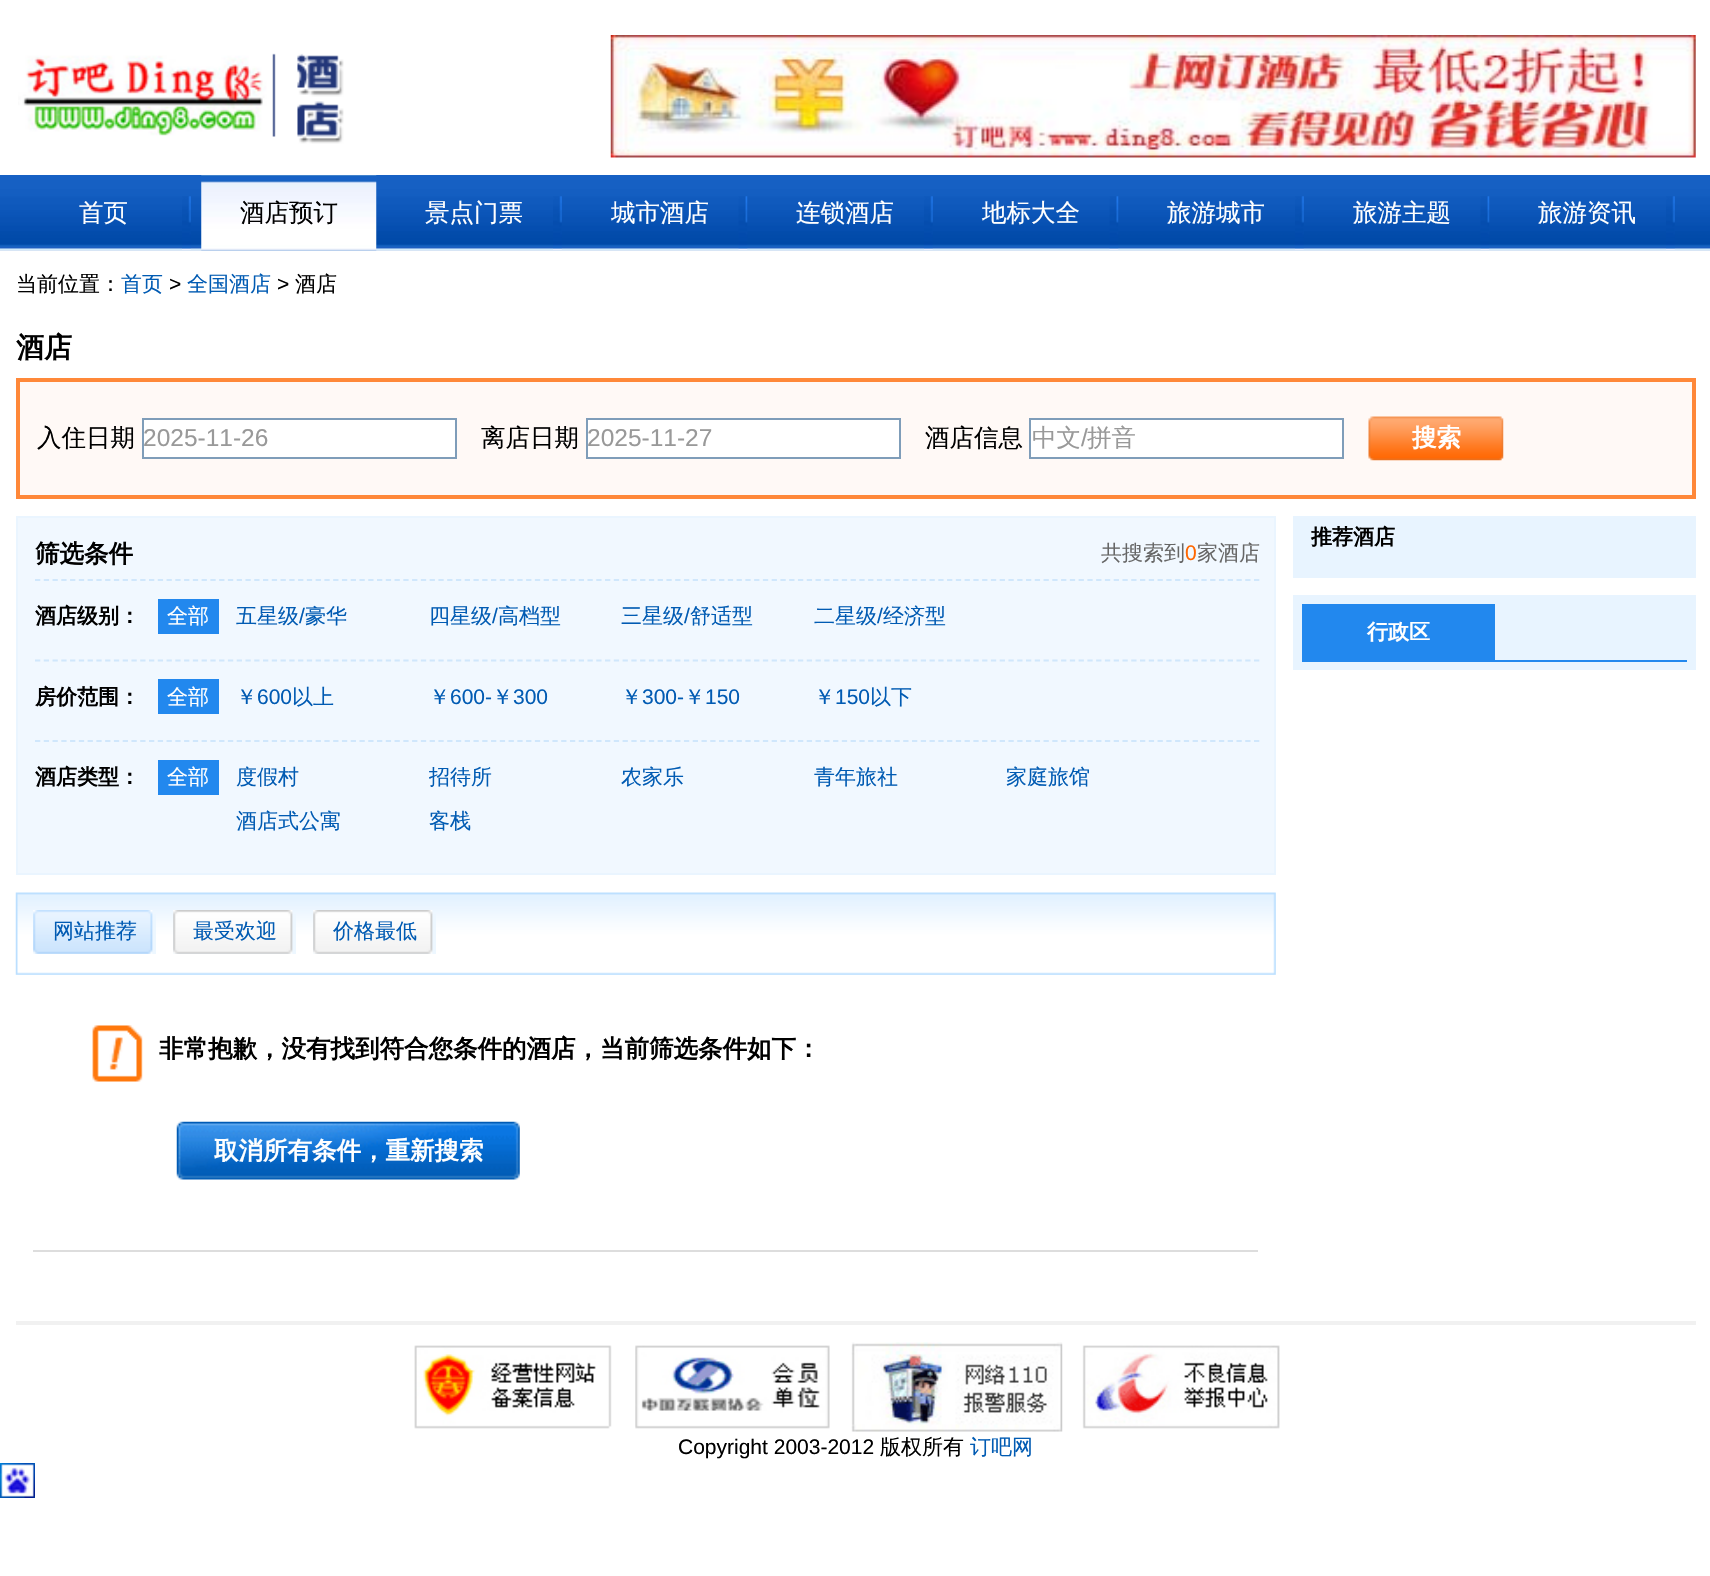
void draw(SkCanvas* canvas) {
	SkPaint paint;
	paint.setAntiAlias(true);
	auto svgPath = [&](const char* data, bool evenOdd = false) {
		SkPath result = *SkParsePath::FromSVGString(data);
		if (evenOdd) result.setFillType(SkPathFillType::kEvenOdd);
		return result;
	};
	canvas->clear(0xffffffff);
	canvas->drawImageRect(SkImages::DeferredFromEncodedData(SkData::MakeFromFileName("img1.png")), SkRect::MakeXYWH(18, 53, 326, 91), SkSamplingOptions());
	canvas->drawImageRect(SkImages::DeferredFromEncodedData(SkData::MakeFromFileName("img2.png")), SkRect::MakeXYWH(610, 35, 1086, 123), SkSamplingOptions());
	canvas->drawImageRect(SkImages::DeferredFromEncodedData(SkData::MakeFromFileName("img3.png")), SkRect::MakeXYWH(0, 175, 1710, 76), SkSamplingOptions());
	canvas->drawImageRect(SkImages::DeferredFromEncodedData(SkData::MakeFromFileName("img4.png")), SkRect::MakeXYWH(182, 196, 9, 54), SkSamplingOptions());
	SkFont f1(fontMgr->matchFamilyStyle("WenQuanYi Zen Hei", SkFontStyle(500, SkFontStyle::kNormal_Width, SkFontStyle::kUpright_Slant)), 24.5);
	f1.setSubpixel(true);
	paint.setColor(0xffffffff);
	canvas->drawString("首页", 79, 221, f1, paint);
	canvas->drawImageRect(SkImages::DeferredFromEncodedData(SkData::MakeFromFileName("img5.png")), SkRect::MakeXYWH(201, 175, 176, 76), SkSamplingOptions());
	paint.setColor(0xff000000);
	canvas->drawString("酒店预订", 240, 221, f1, paint);
	canvas->drawImageRect(SkImages::DeferredFromEncodedData(SkData::MakeFromFileName("img6.png")), SkRect::MakeXYWH(553, 196, 9, 54), SkSamplingOptions());
	paint.setColor(0xffffffff);
	canvas->drawString("景点门票", 425, 221, f1, paint);
	canvas->drawImageRect(SkImages::DeferredFromEncodedData(SkData::MakeFromFileName("img7.png")), SkRect::MakeXYWH(738, 196, 10, 54), SkSamplingOptions());
	canvas->drawString("城市酒店", 611, 221, f1, paint);
	canvas->drawImageRect(SkImages::DeferredFromEncodedData(SkData::MakeFromFileName("img6.png")), SkRect::MakeXYWH(924, 196, 9, 54), SkSamplingOptions());
	canvas->drawString("连锁酒店", 796, 221, f1, paint);
	canvas->drawImageRect(SkImages::DeferredFromEncodedData(SkData::MakeFromFileName("img8.png")), SkRect::MakeXYWH(1109, 196, 10, 54), SkSamplingOptions());
	canvas->drawString("地标大全", 982, 221, f1, paint);
	canvas->drawImageRect(SkImages::DeferredFromEncodedData(SkData::MakeFromFileName("img6.png")), SkRect::MakeXYWH(1295, 196, 9, 54), SkSamplingOptions());
	canvas->drawString("旅游城市", 1167, 221, f1, paint);
	canvas->drawImageRect(SkImages::DeferredFromEncodedData(SkData::MakeFromFileName("img7.png")), SkRect::MakeXYWH(1480, 196, 10, 54), SkSamplingOptions());
	canvas->drawString("旅游主题", 1353, 221, f1, paint);
	canvas->drawImageRect(SkImages::DeferredFromEncodedData(SkData::MakeFromFileName("img6.png")), SkRect::MakeXYWH(1666, 196, 9, 54), SkSamplingOptions());
	canvas->drawString("旅游资讯", 1538, 221, f1, paint);
	SkFont f2(fontMgr->matchFamilyStyle("WenQuanYi Zen Hei", SkFontStyle(500, SkFontStyle::kNormal_Width, SkFontStyle::kUpright_Slant)), 21);
	f2.setSubpixel(true);
	paint.setColor(0xff000000);
	canvas->drawString("当前位置：", 16, 291, f2, paint);
	paint.setColor(0xff015bb3);
	canvas->drawString("首页", 121, 291, f2, paint);
	SkFont f3(fontMgr->matchFamilyStyle("Liberation Sans", SkFontStyle::Normal()), 21);
	f3.setSubpixel(true);
	paint.setColor(0xff000000);
	canvas->drawString(">", 169, 291, f3, paint);
	paint.setColor(0xff015bb3);
	canvas->drawString("全国酒店", 187, 291, f2, paint);
	paint.setColor(0xff000000);
	canvas->drawString(">", 277, 291, f3, paint);
	canvas->drawString("酒店", 295, 291, f2, paint);
	SkFont f4(fontMgr->matchFamilyStyle("WenQuanYi Zen Hei", SkFontStyle::Bold()), 28);
	f4.setSubpixel(true);
	canvas->drawString("酒店", 16, 357, f4, paint);
	paint.setColor(0xfffff9f6);
	canvas->drawRect(SkRect::MakeXYWH(18, 380, 1676, 117), paint);
	paint.setStroke(true);
	paint.setStrokeWidth(4);
	paint.setColor(0xffff8839);
	canvas->drawRect(SkRect::MakeXYWH(18, 380, 1676, 117), paint);
	paint.setStroke(false);
	paint.setColor(0xff000000);
	canvas->drawString("入住日期", 37, 446, f1, paint);
	paint.setColor(0xffffffff);
	canvas->drawRect(SkRect::MakeXYWH(143, 419, 313, 39), paint);
	paint.setStroke(true);
	paint.setStrokeWidth(2);
	paint.setColor(0xff7f9db9);
	canvas->drawRect(SkRect::MakeXYWH(143, 419, 313, 39), paint);
	SkFont f5(fontMgr->matchFamilyStyle("Liberation Sans", SkFontStyle::Normal()), 24.5);
	f5.setSubpixel(true);
	paint.setStroke(false);
	paint.setColor(0xff999999);
	canvas->drawString("2025-11-26", 143, 446, f5, paint);
	paint.setColor(0xff000000);
	canvas->drawString("离店日期", 481, 446, f1, paint);
	paint.setColor(0xffffffff);
	canvas->drawRect(SkRect::MakeXYWH(587, 419, 313, 39), paint);
	paint.setStroke(true);
	paint.setColor(0xff7f9db9);
	canvas->drawRect(SkRect::MakeXYWH(587, 419, 313, 39), paint);
	paint.setStroke(false);
	paint.setColor(0xff999999);
	canvas->drawString("2025-11-27", 587, 446, f5, paint);
	paint.setColor(0xff000000);
	canvas->drawString("酒店信息", 925, 446, f1, paint);
	paint.setColor(0xffffffff);
	canvas->drawRect(SkRect::MakeXYWH(1030, 419, 313, 39), paint);
	paint.setStroke(true);
	paint.setColor(0xff7f9db9);
	canvas->drawRect(SkRect::MakeXYWH(1030, 419, 313, 39), paint);
	paint.setStroke(false);
	paint.setColor(0xff999999);
	canvas->drawString("中文", 1032, 446, f1, paint);
	canvas->drawString("/", 1081, 446, f5, paint);
	canvas->drawString("拼音", 1087, 446, f1, paint);
	canvas->drawImageRect(SkImages::DeferredFromEncodedData(SkData::MakeFromFileName("img9.png")), SkRect::MakeXYWH(1368, 416, 136, 45), SkSamplingOptions());
	SkFont f6(fontMgr->matchFamilyStyle("WenQuanYi Zen Hei", SkFontStyle::Bold()), 24.5);
	f6.setSubpixel(true);
	paint.setColor(0xffffffff);
	canvas->drawString("搜索", 1412, 446, f6, paint);
	paint.setColor(0xfff1f8ff);
	canvas->drawRect(SkRect::MakeXYWH(17, 517, 1258, 357), paint);
	paint.setStroke(true);
	paint.setColor(0xffeaf5ff);
	canvas->drawRect(SkRect::MakeXYWH(17, 517, 1258, 357), paint);
	paint.setStrokeWidth(1.8);
	paint.setColor(0xffd0e7fc);
	paint.setPathEffect(SkDashPathEffect::Make({{5.25f, 3.52f}}, 0));
	canvas->drawPath(svgPath("M35 580H1260"), paint);
	paint.setPathEffect(nullptr);
	paint.setStroke(false);
	paint.setColor(0xff000000);
	canvas->drawString("筛选条件", 35, 562, f6, paint);
	paint.setColor(0xff666666);
	canvas->drawString("共搜索到", 1101, 560, f2, paint);
	paint.setColor(0xffff6600);
	canvas->drawString("0", 1185, 560, f3, paint);
	paint.setColor(0xff666666);
	canvas->drawString("家酒店", 1197, 560, f2, paint);
	paint.setStroke(true);
	paint.setColor(0xffd0e7fc);
	paint.setPathEffect(SkDashPathEffect::Make({{5.25f, 3.52f}}, 0));
	canvas->drawPath(svgPath("M35 660.5H1260"), paint);
	paint.setPathEffect(nullptr);
	SkFont f7(fontMgr->matchFamilyStyle("WenQuanYi Zen Hei", SkFontStyle::Bold()), 21);
	f7.setSubpixel(true);
	paint.setStroke(false);
	paint.setColor(0xff000000);
	canvas->drawString("酒店级别：", 35, 623, f7, paint);
	paint.setColor(0xff2288ee);
	canvas->drawRect(SkRect::MakeXYWH(158, 599, 61, 35), paint);
	paint.setColor(0xffffffff);
	canvas->drawString("全部", 167, 623, f2, paint);
	paint.setColor(0xff015bb3);
	canvas->drawString("五星级", 236, 623, f2, paint);
	canvas->drawString("/", 299, 623, f3, paint);
	canvas->drawString("豪华", 305, 623, f2, paint);
	canvas->drawString("四星级", 429, 623, f2, paint);
	canvas->drawString("/", 492, 623, f3, paint);
	canvas->drawString("高档型", 498, 623, f2, paint);
	canvas->drawString("三星级", 621, 623, f2, paint);
	canvas->drawString("/", 684, 623, f3, paint);
	canvas->drawString("舒适型", 690, 623, f2, paint);
	canvas->drawString("二星级", 814, 623, f2, paint);
	canvas->drawString("/", 877, 623, f3, paint);
	canvas->drawString("经济型", 883, 623, f2, paint);
	paint.setStroke(true);
	paint.setColor(0xffd0e7fc);
	paint.setPathEffect(SkDashPathEffect::Make({{5.25f, 3.52f}}, 0));
	canvas->drawPath(svgPath("M35 741H1260"), paint);
	paint.setPathEffect(nullptr);
	paint.setStroke(false);
	paint.setColor(0xff000000);
	canvas->drawString("房价范围：", 35, 704, f7, paint);
	paint.setColor(0xff2288ee);
	canvas->drawRect(SkRect::MakeXYWH(158, 679, 61, 35), paint);
	paint.setColor(0xffffffff);
	canvas->drawString("全部", 167, 704, f2, paint);
	paint.setColor(0xff015bb3);
	canvas->drawString("￥", 236, 704, f2, paint);
	canvas->drawString("600", 257, 704, f3, paint);
	canvas->drawString("以上", 292, 704, f2, paint);
	canvas->drawString("￥", 429, 704, f2, paint);
	canvas->drawString("600-", 450, 704, f3, paint);
	canvas->drawString("￥", 492, 704, f2, paint);
	canvas->drawString("300", 513, 704, f3, paint);
	canvas->drawString("￥", 621, 704, f2, paint);
	canvas->drawString("300-", 642, 704, f3, paint);
	canvas->drawString("￥", 684, 704, f2, paint);
	canvas->drawString("150", 705, 704, f3, paint);
	canvas->drawString("￥", 814, 704, f2, paint);
	canvas->drawString("150", 835, 704, f3, paint);
	canvas->drawString("以下", 870, 704, f2, paint);
	paint.setColor(0xff000000);
	canvas->drawString("酒店类型：", 35, 784, f7, paint);
	paint.setColor(0xff2288ee);
	canvas->drawRect(SkRect::MakeXYWH(158, 760, 61, 35), paint);
	paint.setColor(0xffffffff);
	canvas->drawString("全部", 167, 784, f2, paint);
	paint.setColor(0xff015bb3);
	canvas->drawString("度假村", 236, 784, f2, paint);
	canvas->drawString("招待所", 429, 784, f2, paint);
	canvas->drawString("农家乐", 621, 784, f2, paint);
	canvas->drawString("青年旅社", 814, 784, f2, paint);
	canvas->drawString("家庭旅馆", 1006, 784, f2, paint);
	canvas->drawString("酒店式公寓", 236, 828, f2, paint);
	canvas->drawString("客栈", 429, 828, f2, paint);
	paint.setColor(0xffedf7ff);
	canvas->drawRect(SkRect::MakeXYWH(16, 893, 1260, 82), paint);
	canvas->drawImageRect(SkImages::DeferredFromEncodedData(SkData::MakeFromFileName("img10.png")), SkRect::MakeXYWH(15, 892, 1261, 83), SkSamplingOptions());
	canvas->drawRect(SkRect::MakeXYWH(33, 914, 123, 40), paint);
	canvas->drawImageRect(SkImages::DeferredFromEncodedData(SkData::MakeFromFileName("img11.png")), SkRect::MakeXYWH(33, 910, 120, 44), SkSamplingOptions());
	paint.setColor(0xff015bb3);
	canvas->drawString("网站推荐", 53, 938, f2, paint);
	paint.setColor(0xffedf7ff);
	canvas->drawRect(SkRect::MakeXYWH(173, 914, 123, 40), paint);
	canvas->drawImageRect(SkImages::DeferredFromEncodedData(SkData::MakeFromFileName("img12.png")), SkRect::MakeXYWH(173, 910, 120, 44), SkSamplingOptions());
	paint.setColor(0xff015bb3);
	canvas->drawString("最受欢迎", 193, 938, f2, paint);
	paint.setColor(0xffedf7ff);
	canvas->drawRect(SkRect::MakeXYWH(313, 914, 123, 40), paint);
	canvas->drawImageRect(SkImages::DeferredFromEncodedData(SkData::MakeFromFileName("img12.png")), SkRect::MakeXYWH(313, 910, 120, 44), SkSamplingOptions());
	paint.setColor(0xff015bb3);
	canvas->drawString("价格最低", 333, 938, f2, paint);
	canvas->drawImageRect(SkImages::DeferredFromEncodedData(SkData::MakeFromFileName("img13.png")), SkRect::MakeXYWH(92, 1025, 51, 57), SkSamplingOptions());
	paint.setColor(0xff000000);
	canvas->drawString("非常抱歉，没有找到符合您条件的酒店，当前筛选条件如下：", 159, 1057, f6, paint);
	canvas->drawImageRect(SkImages::DeferredFromEncodedData(SkData::MakeFromFileName("img14.png")), SkRect::MakeXYWH(176, 1121, 344, 59), SkSamplingOptions());
	paint.setColor(0xffffffff);
	canvas->drawString("取消所有条件，重新搜索", 214, 1159, f6, paint);
	paint.setColor(0xffdddddd);
	canvas->drawRect(SkRect::MakeXYWH(33, 1250, 1225, 2), paint);
	paint.setColor(0xffe8f4ff);
	canvas->drawRect(SkRect::MakeXYWH(1293, 516, 403, 62), paint);
	paint.setColor(0xff000000);
	canvas->drawString("推荐酒店", 1311, 544, f7, paint);
	paint.setColor(0xffe8f4ff);
	canvas->drawRect(SkRect::MakeXYWH(1293, 595, 403, 75), paint);
	paint.setColor(0xff2288ee);
	canvas->drawRect(SkRect::MakeXYWH(1302, 660, 385, 2), paint);
	canvas->drawRect(SkRect::MakeXYWH(1302, 604, 193, 56), paint);
	paint.setColor(0xffffffff);
	canvas->drawString("行政区", 1367, 639, f7, paint);
	paint.setColor(0xfff1f1f1);
	canvas->drawRect(SkRect::MakeXYWH(16, 1321, 1680, 4), paint);
	canvas->drawImageRect(SkImages::DeferredFromEncodedData(SkData::MakeFromFileName("img15.png")), SkRect::MakeXYWH(414, 1345, 198, 84), SkSamplingOptions());
	canvas->drawImageRect(SkImages::DeferredFromEncodedData(SkData::MakeFromFileName("img16.png")), SkRect::MakeXYWH(635, 1345, 195, 84), SkSamplingOptions());
	canvas->drawImageRect(SkImages::DeferredFromEncodedData(SkData::MakeFromFileName("img17.png")), SkRect::MakeXYWH(851, 1342, 212, 90), SkSamplingOptions());
	canvas->drawImageRect(SkImages::DeferredFromEncodedData(SkData::MakeFromFileName("img18.png")), SkRect::MakeXYWH(1082, 1345, 198, 84), SkSamplingOptions());
	paint.setColor(0xff000000);
	canvas->drawString("Copyright 2003-2012", 678, 1454, f3, paint);
	canvas->drawString("版权所有", 880, 1454, f2, paint);
	paint.setColor(0xff015bb3);
	canvas->drawString("订吧网", 970, 1454, f2, paint);
	canvas->drawImageRect(SkImages::DeferredFromEncodedData(SkData::MakeFromFileName("img19.png")), SkRect::MakeXYWH(0, 1463, 35, 35), SkSamplingOptions());
}
